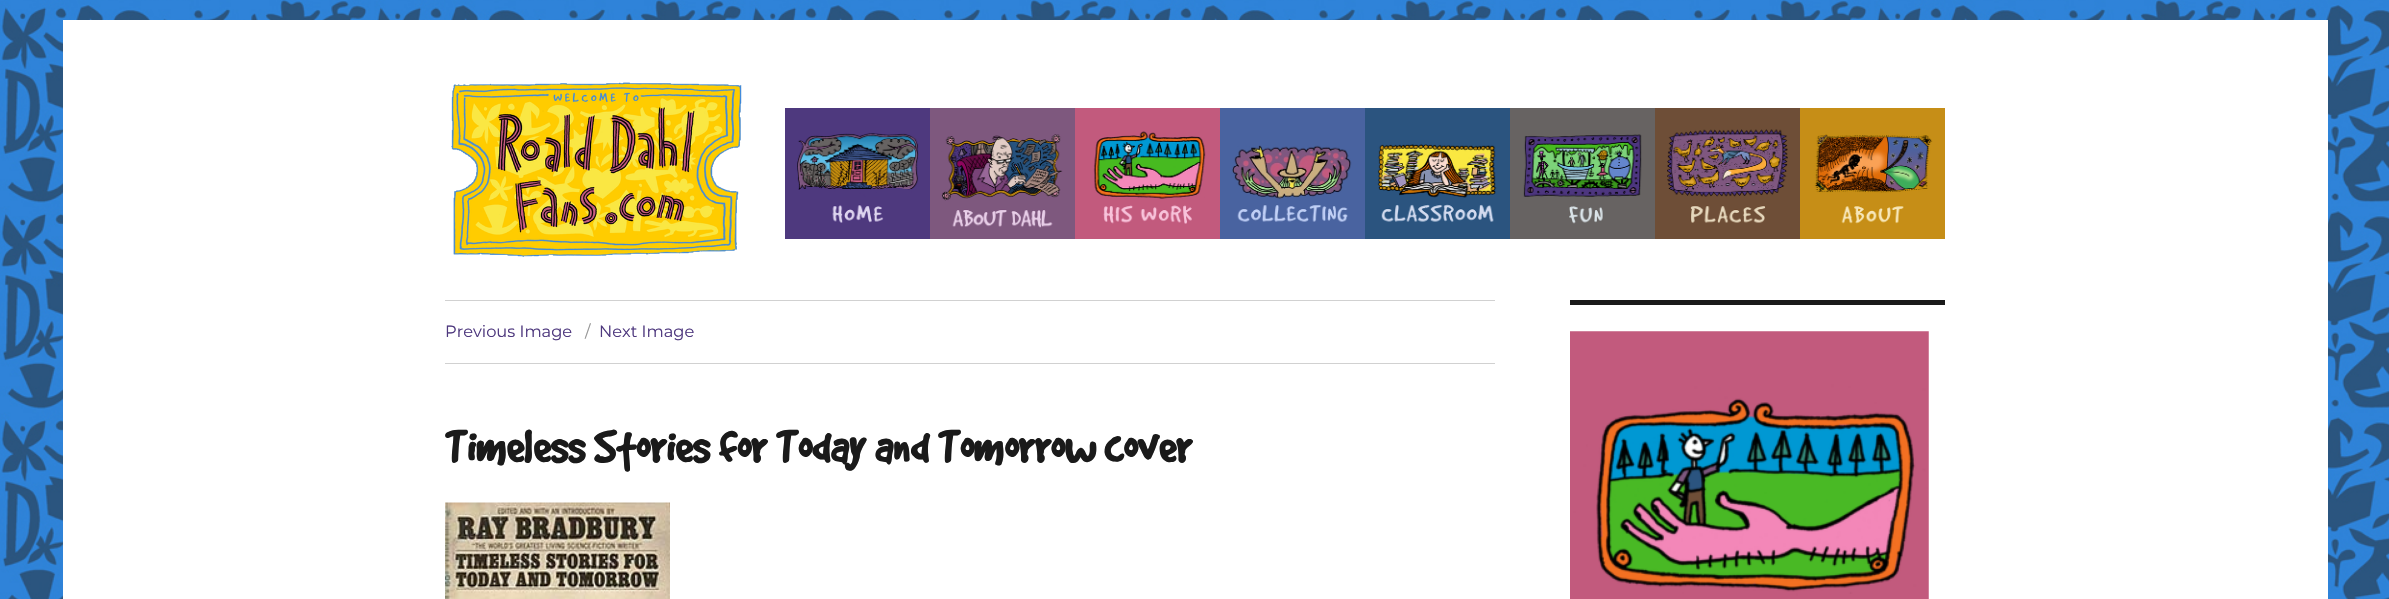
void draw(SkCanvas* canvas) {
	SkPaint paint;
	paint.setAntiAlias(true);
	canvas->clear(0xffffffff);
	canvas->drawImageRect(SkImages::DeferredFromEncodedData(SkData::MakeFromFileName("img1.png")), SkRect::MakeXYWH(0, 0, 2389, 599), SkSamplingOptions());
	paint.setColor(0xffffffff);
	canvas->drawRect(SkRect::MakeXYWH(63, 20, 2265, 579), paint);
	canvas->drawImageRect(SkImages::DeferredFromEncodedData(SkData::MakeFromFileName("img2.png")), SkRect::MakeXYWH(451, 82, 291, 175), SkSamplingOptions());
	paint.setColor(0xff4e397e);
	canvas->drawRect(SkRect::MakeXYWH(785, 108, 145, 131), paint);
	canvas->drawImageRect(SkImages::DeferredFromEncodedData(SkData::MakeFromFileName("img3.png")), SkRect::MakeXYWH(797, 133, 122, 90), SkSamplingOptions());
	paint.setColor(0xff7e587e);
	canvas->drawRect(SkRect::MakeXYWH(930, 108, 145, 131), paint);
	canvas->drawImageRect(SkImages::DeferredFromEncodedData(SkData::MakeFromFileName("img4.png")), SkRect::MakeXYWH(941, 134, 122, 94), SkSamplingOptions());
	paint.setColor(0xffc25a7d);
	canvas->drawRect(SkRect::MakeXYWH(1075, 108, 145, 131), paint);
	canvas->drawImageRect(SkImages::DeferredFromEncodedData(SkData::MakeFromFileName("img5.png")), SkRect::MakeXYWH(1093, 131, 113, 93), SkSamplingOptions());
	paint.setColor(0xff4963a0);
	canvas->drawRect(SkRect::MakeXYWH(1220, 108, 145, 131), paint);
	canvas->drawImageRect(SkImages::DeferredFromEncodedData(SkData::MakeFromFileName("img6.png")), SkRect::MakeXYWH(1230, 145, 122, 77), SkSamplingOptions());
	paint.setColor(0xff2b547f);
	canvas->drawRect(SkRect::MakeXYWH(1365, 108, 145, 131), paint);
	canvas->drawImageRect(SkImages::DeferredFromEncodedData(SkData::MakeFromFileName("img7.png")), SkRect::MakeXYWH(1377, 144, 120, 78), SkSamplingOptions());
	paint.setColor(0xff676362);
	canvas->drawRect(SkRect::MakeXYWH(1510, 108, 145, 131), paint);
	canvas->drawImageRect(SkImages::DeferredFromEncodedData(SkData::MakeFromFileName("img8.png")), SkRect::MakeXYWH(1523, 134, 119, 90), SkSamplingOptions());
	paint.setColor(0xff6e4e37);
	canvas->drawRect(SkRect::MakeXYWH(1655, 108, 145, 131), paint);
	canvas->drawImageRect(SkImages::DeferredFromEncodedData(SkData::MakeFromFileName("img9.png")), SkRect::MakeXYWH(1667, 129, 121, 94), SkSamplingOptions());
	paint.setColor(0xffc68e17);
	canvas->drawRect(SkRect::MakeXYWH(1800, 108, 145, 131), paint);
	canvas->drawImageRect(SkImages::DeferredFromEncodedData(SkData::MakeFromFileName("img10.png")), SkRect::MakeXYWH(1814, 134, 119, 90), SkSamplingOptions());
	paint.setColor(0xffd1d1d1);
	canvas->drawRect(SkRect::MakeXYWH(445, 300, 1050, 1), paint);
	canvas->drawRect(SkRect::MakeXYWH(445, 363, 1050, 1), paint);
	SkFont f1(fontMgr->matchFamilyStyle("Montserrat", SkFontStyle(100, SkFontStyle::kNormal_Width, SkFontStyle::kUpright_Slant)), 16.25);
	f1.setSubpixel(true);
	paint.setColor(0xff4e387e);
	canvas->drawString("Previous Image", 445, 337, f1, paint);
	paint.setColor(0xff959595);
	canvas->drawString("/", 585, 337, f1, paint);
	paint.setColor(0xff4e387e);
	canvas->drawString("Next Image", 599, 337, f1, paint);
	SkFont f2(fontMgr->matchFamilyStyle("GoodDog", SkFontStyle::Bold()), 50);
	f2.setSubpixel(true);
	paint.setColor(0xff1a1a1a);
	canvas->drawString("Timeless Stories for Today and Tomorrow cover", 445, 463, f2, paint);
	canvas->drawImageRect(SkImages::DeferredFromEncodedData(SkData::MakeFromFileName("img11.png")), SkRect::MakeXYWH(445, 502, 225, 97), SkSamplingOptions());
	canvas->drawRect(SkRect::MakeXYWH(1570, 300, 375, 5), paint);
	canvas->drawImageRect(SkImages::DeferredFromEncodedData(SkData::MakeFromFileName("img12.png")), SkRect::MakeXYWH(1570, 331, 359, 268), SkSamplingOptions());
}
